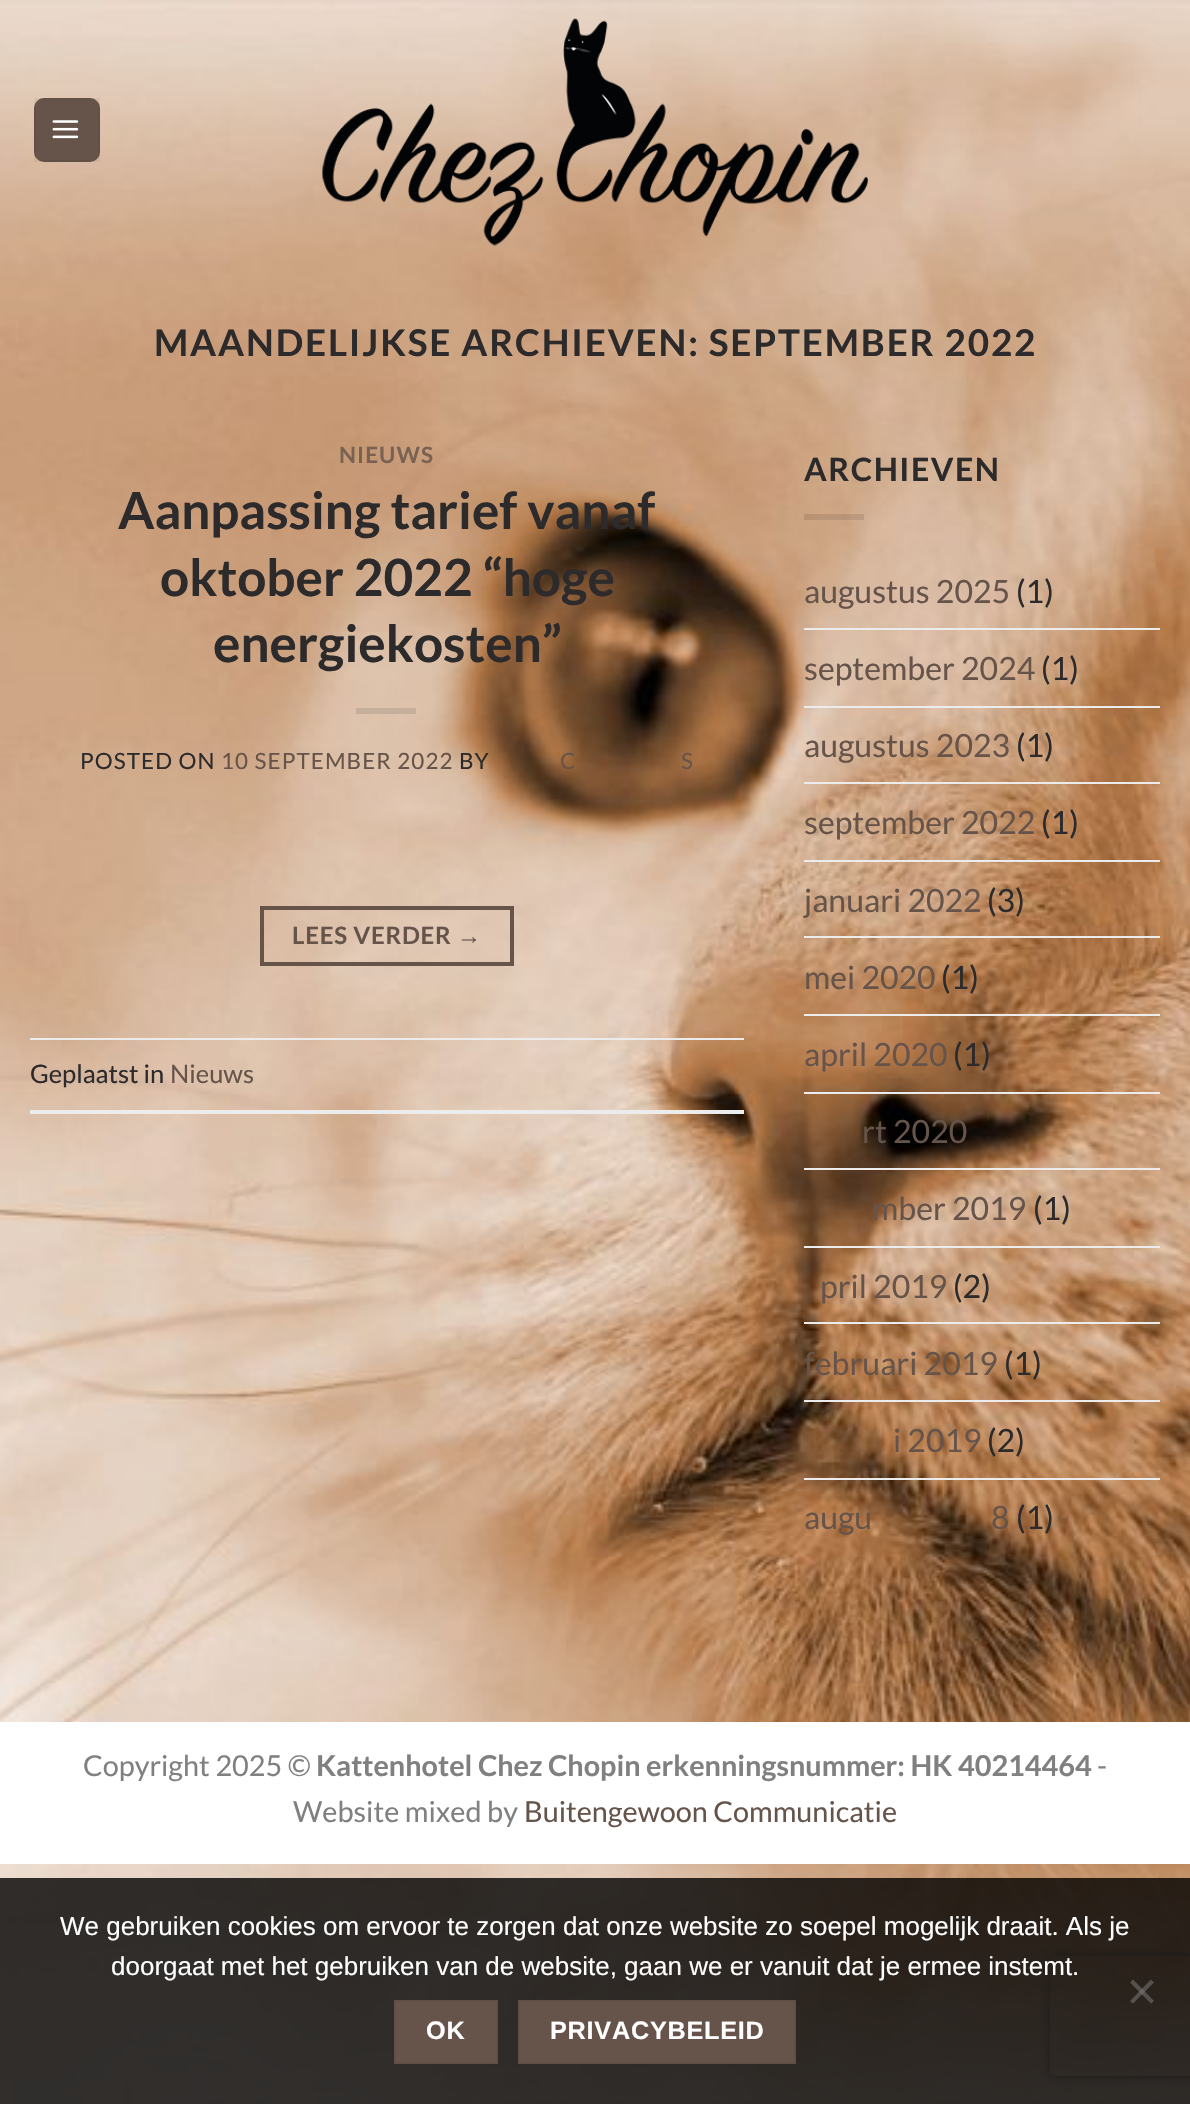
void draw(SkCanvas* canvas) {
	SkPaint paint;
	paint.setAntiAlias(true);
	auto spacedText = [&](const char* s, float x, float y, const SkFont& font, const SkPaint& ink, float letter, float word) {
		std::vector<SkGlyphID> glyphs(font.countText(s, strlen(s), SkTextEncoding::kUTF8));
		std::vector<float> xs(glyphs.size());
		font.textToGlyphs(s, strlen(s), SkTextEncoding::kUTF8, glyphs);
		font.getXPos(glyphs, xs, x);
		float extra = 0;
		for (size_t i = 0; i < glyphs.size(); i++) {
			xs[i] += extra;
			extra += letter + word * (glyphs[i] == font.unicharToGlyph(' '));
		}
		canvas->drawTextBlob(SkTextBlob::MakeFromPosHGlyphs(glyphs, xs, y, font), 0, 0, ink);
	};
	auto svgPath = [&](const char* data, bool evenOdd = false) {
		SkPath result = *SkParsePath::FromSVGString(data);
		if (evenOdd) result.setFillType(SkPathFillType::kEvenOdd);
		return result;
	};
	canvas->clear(0xffffffff);
	canvas->drawImageRect(SkImages::DeferredFromEncodedData(SkData::MakeFromFileName("img1.png")), SkRect::MakeXYWH(0, 0, 1190, 2104), SkSamplingOptions());
	paint.setColor(0xff66544a);
	canvas->drawRoundRect(SkRect::MakeXYWH(34, 98, 66, 64), 10, 10, paint);
	paint.setStroke(true);
	paint.setStrokeWidth(2);
	paint.setColor(0x0d000000);
	canvas->drawRect(SkRect::MakeXYWH(35, 99, 64, 62), paint);
	canvas->drawImageRect(SkImages::DeferredFromEncodedData(SkData::MakeFromFileName("img2.png")), SkRect::MakeXYWH(52, 120, 27, 19), SkSamplingOptions());
	canvas->drawImageRect(SkImages::DeferredFromEncodedData(SkData::MakeFromFileName("img3.png")), SkRect::MakeXYWH(322, 18, 546, 228), SkSamplingOptions());
	SkFont f1(fontMgr->matchFamilyStyle("Lato", SkFontStyle::Bold()), 36.8);
	f1.setSubpixel(true);
	paint.setStroke(false);
	paint.setColor(0xff2c2a2a);
	spacedText("MAANDELIJKSE ARCHIEVEN: SEPTEMBER 2022", 154, 356, f1, paint, 1.85, 0);
	SkFont f2(fontMgr->matchFamilyStyle("Lato", SkFontStyle::Bold()), 22.4);
	f2.setSubpixel(true);
	paint.setColor(0xff7a6253);
	spacedText("NIEUWS", 339, 463, f2, paint, 1.1, 0);
	SkFont f3(fontMgr->matchFamilyStyle("Lato", SkFontStyle::Bold()), 51.25);
	f3.setSubpixel(true);
	paint.setColor(0xff2c2a2a);
	canvas->drawString("Aanpassing tarief vanaf", 118, 529, f3, paint);
	canvas->drawString("oktober 2022 “hoge", 160, 596, f3, paint);
	canvas->drawString("energiekosten”", 213, 662, f3, paint);
	paint.setColor(0x1a000000);
	canvas->drawRect(SkRect::MakeXYWH(356, 708, 60, 6), paint);
	SkFont f4(fontMgr->matchFamilyStyle("Lato", SkFontStyle::Normal()), 22.4);
	f4.setSubpixel(true);
	paint.setColor(0xff2c2a2a);
	spacedText("POSTED ON", 80, 769, f4, paint, 1.1, 0);
	paint.setColor(0xff66544a);
	spacedText("10 SEPTEMBER 2022", 221, 769, f4, paint, 1.1, 0);
	paint.setColor(0xff2c2a2a);
	spacedText("BY", 459, 769, f4, paint, 1.1, 0);
	paint.setColor(0xff66544a);
	spacedText("C", 560, 769, f4, paint, 1.1, 0);
	spacedText("S", 681, 769, f4, paint, 1.1, 0);
	paint.setStroke(true);
	paint.setStrokeWidth(4);
	canvas->drawRect(SkRect::MakeXYWH(262, 908, 250, 56), paint);
	SkFont f5(fontMgr->matchFamilyStyle("Lato", SkFontStyle::Bold()), 24);
	f5.setSubpixel(true);
	paint.setStroke(false);
	spacedText("LEES VERDER", 292, 944, f5, paint, 0.75, 0);
	SkFont f6(fontMgr->matchFamilyStyle("Liberation Sans", SkFontStyle::Bold()), 24);
	f6.setSubpixel(true);
	spacedText("→", 457, 944, f6, paint, 0.75, 0);
	paint.setColor(0xffececec);
	canvas->drawRect(SkRect::MakeXYWH(30, 1038, 714, 2), paint);
	canvas->drawRect(SkRect::MakeXYWH(30, 1110, 714, 4), paint);
	SkFont f7(fontMgr->matchFamilyStyle("Lato", SkFontStyle::Normal()), 25.5);
	f7.setSubpixel(true);
	paint.setColor(0xff2c2a2a);
	canvas->drawString("Geplaatst in", 30, 1083, f7, paint);
	paint.setColor(0xff66544a);
	canvas->drawString("Nieuws", 170, 1083, f7, paint);
	SkFont f8(fontMgr->matchFamilyStyle("Lato", SkFontStyle::Bold()), 32);
	f8.setSubpixel(true);
	paint.setColor(0xff2c2a2a);
	spacedText("ARCHIEVEN", 804, 481, f8, paint, 1.5, 0);
	paint.setColor(0x1a000000);
	canvas->drawRect(SkRect::MakeXYWH(804, 514, 60, 6), paint);
	SkFont f9(fontMgr->matchFamilyStyle("Lato", SkFontStyle::Normal()), 32);
	f9.setSubpixel(true);
	paint.setColor(0xff66544a);
	canvas->drawString("augustus 2025", 804, 603, f9, paint);
	paint.setColor(0xff2c2a2a);
	canvas->drawString("(1)", 1016, 603, f9, paint);
	paint.setColor(0xffececec);
	canvas->drawRect(SkRect::MakeXYWH(804, 628, 356, 2), paint);
	paint.setColor(0xff66544a);
	canvas->drawString("september 2024", 804, 680, f9, paint);
	paint.setColor(0xff2c2a2a);
	canvas->drawString("(1)", 1041, 680, f9, paint);
	paint.setColor(0xffececec);
	canvas->drawRect(SkRect::MakeXYWH(804, 706, 356, 2), paint);
	paint.setColor(0xff66544a);
	canvas->drawString("augustus 2023", 804, 757, f9, paint);
	paint.setColor(0xff2c2a2a);
	canvas->drawString("(1)", 1016, 757, f9, paint);
	paint.setColor(0xffececec);
	canvas->drawRect(SkRect::MakeXYWH(804, 782, 356, 2), paint);
	paint.setColor(0xff66544a);
	canvas->drawString("september 2022", 804, 834, f9, paint);
	paint.setColor(0xff2c2a2a);
	canvas->drawString("(1)", 1041, 834, f9, paint);
	paint.setColor(0xffececec);
	canvas->drawRect(SkRect::MakeXYWH(804, 860, 356, 2), paint);
	paint.setColor(0xff66544a);
	canvas->drawString("januari 2022", 804, 912, f9, paint);
	paint.setColor(0xff2c2a2a);
	canvas->drawString("(3)", 987, 912, f9, paint);
	paint.setColor(0xffececec);
	canvas->drawRect(SkRect::MakeXYWH(804, 936, 356, 2), paint);
	paint.setColor(0xff66544a);
	canvas->drawString("mei 2020", 804, 989, f9, paint);
	paint.setColor(0xff2c2a2a);
	canvas->drawString("(1)", 941, 989, f9, paint);
	paint.setColor(0xffececec);
	canvas->drawRect(SkRect::MakeXYWH(804, 1014, 356, 2), paint);
	paint.setColor(0xff66544a);
	canvas->drawString("april 2020", 804, 1066, f9, paint);
	paint.setColor(0xff2c2a2a);
	canvas->drawString("(1)", 953, 1066, f9, paint);
	paint.setColor(0xffececec);
	canvas->drawRect(SkRect::MakeXYWH(804, 1092, 356, 2), paint);
	paint.setColor(0xff66544a);
	canvas->drawString("rt 2020", 862, 1143, f9, paint);
	paint.setColor(0xffececec);
	canvas->drawRect(SkRect::MakeXYWH(804, 1168, 356, 2), paint);
	paint.setColor(0xff66544a);
	canvas->drawString("mber 2019", 872, 1220, f9, paint);
	paint.setColor(0xff2c2a2a);
	canvas->drawString("(1)", 1033, 1220, f9, paint);
	paint.setColor(0xffececec);
	canvas->drawRect(SkRect::MakeXYWH(804, 1246, 356, 2), paint);
	paint.setColor(0xff66544a);
	canvas->drawString("pril 2019", 820, 1298, f9, paint);
	paint.setColor(0xff2c2a2a);
	canvas->drawString("(2)", 953, 1298, f9, paint);
	paint.setColor(0xffececec);
	canvas->drawRect(SkRect::MakeXYWH(804, 1322, 356, 2), paint);
	paint.setColor(0xff66544a);
	canvas->drawString("februari 2019", 804, 1375, f9, paint);
	paint.setColor(0xff2c2a2a);
	canvas->drawString("(1)", 1004, 1375, f9, paint);
	paint.setColor(0xffececec);
	canvas->drawRect(SkRect::MakeXYWH(804, 1400, 356, 2), paint);
	paint.setColor(0xff66544a);
	canvas->drawString("i 2019", 893, 1452, f9, paint);
	paint.setColor(0xff2c2a2a);
	canvas->drawString("(2)", 987, 1452, f9, paint);
	paint.setColor(0xffececec);
	canvas->drawRect(SkRect::MakeXYWH(804, 1478, 356, 2), paint);
	paint.setColor(0xff66544a);
	canvas->drawString("augu", 804, 1529, f9, paint);
	canvas->drawString("8", 991, 1529, f9, paint);
	paint.setColor(0xff2c2a2a);
	canvas->drawString("(1)", 1016, 1529, f9, paint);
	paint.setColor(0xffffffff);
	canvas->drawRect(SkRect::MakeXYWH(0, 1722, 1190, 142), paint);
	SkFont f10(fontMgr->matchFamilyStyle("Lato", SkFontStyle::Normal()), 28.8);
	f10.setSubpixel(true);
	paint.setColor(0xff808080);
	canvas->drawString("Copyright 2025 ©", 83, 1776, f10, paint);
	SkFont f11(fontMgr->matchFamilyStyle("Lato", SkFontStyle::Bold()), 28.8);
	f11.setSubpixel(true);
	canvas->drawString("Kattenhotel Chez Chopin erkenningsnummer: HK 40214464", 316, 1776, f11, paint);
	canvas->drawString("-", 1097, 1776, f10, paint);
	canvas->drawString("Website mixed by", 293, 1822, f10, paint);
	paint.setColor(0xff66544a);
	canvas->drawString("Buitengewoon Communicatie", 524, 1822, f10, paint);
	canvas->save();
	canvas->clipPath(svgPath("M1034 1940H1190V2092H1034ZM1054 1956H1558C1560 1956 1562 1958 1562 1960V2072C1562 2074 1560 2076 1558 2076H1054C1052 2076 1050 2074 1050 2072V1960C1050 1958 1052 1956 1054 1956Z", true), true);
	paint.setColor(0xff808080);
	paint.setMaskFilter(SkMaskFilter::MakeBlur(kNormal_SkBlurStyle, 5));
	canvas->drawRoundRect(SkRect::MakeXYWH(1050, 1956, 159, 120), 4, 4, paint);
	paint.setMaskFilter(nullptr);
	canvas->restore();
	paint.setColor(0xcc000000);
	canvas->drawRect(SkRect::MakeXYWH(0, 1878, 1190, 226), paint);
	SkFont f12(fontMgr->matchFamilyStyle("Liberation Sans", SkFontStyle::Normal()), 26);
	f12.setSubpixel(true);
	paint.setColor(0xffffffff);
	canvas->drawString("We gebruiken cookies om ervoor te zorgen dat onze website zo soepel mogelijk draait. Als je", 60, 1935, f12, paint);
	canvas->drawString("doorgaat met het gebruiken van de website, gaan we er vanuit dat je ermee instemt.", 111, 1975, f12, paint);
	paint.setColor(0x80808080);
	canvas->drawPath(svgPath("M1151 1979.5L1154 1982.5L1133 2003.5L1130 2001Z"), paint);
	canvas->drawPath(svgPath("M1130 1982.5L1133 1979.5L1154 2001L1151 2003.5Z"), paint);
	paint.setColor(0xff66544a);
	canvas->drawRect(SkRect::MakeXYWH(395, 2001, 102, 62), paint);
	paint.setStroke(true);
	paint.setStrokeWidth(2);
	paint.setColor(0xff615046);
	canvas->drawRect(SkRect::MakeXYWH(395, 2001, 102, 62), paint);
	SkFont f13(fontMgr->matchFamilyStyle("Liberation Sans", SkFontStyle::Bold()), 25.25);
	f13.setSubpixel(true);
	paint.setStroke(false);
	paint.setColor(0xffffffff);
	spacedText("OK", 426, 2039, f13, paint, 0.75, 0);
	paint.setColor(0xff66544a);
	canvas->drawRect(SkRect::MakeXYWH(519, 2001, 276, 62), paint);
	paint.setStroke(true);
	paint.setColor(0xff615046);
	canvas->drawRect(SkRect::MakeXYWH(519, 2001, 276, 62), paint);
	paint.setStroke(false);
	paint.setColor(0xffffffff);
	spacedText("PRIVACYBELEID", 550, 2039, f13, paint, 0.75, 0);
}
